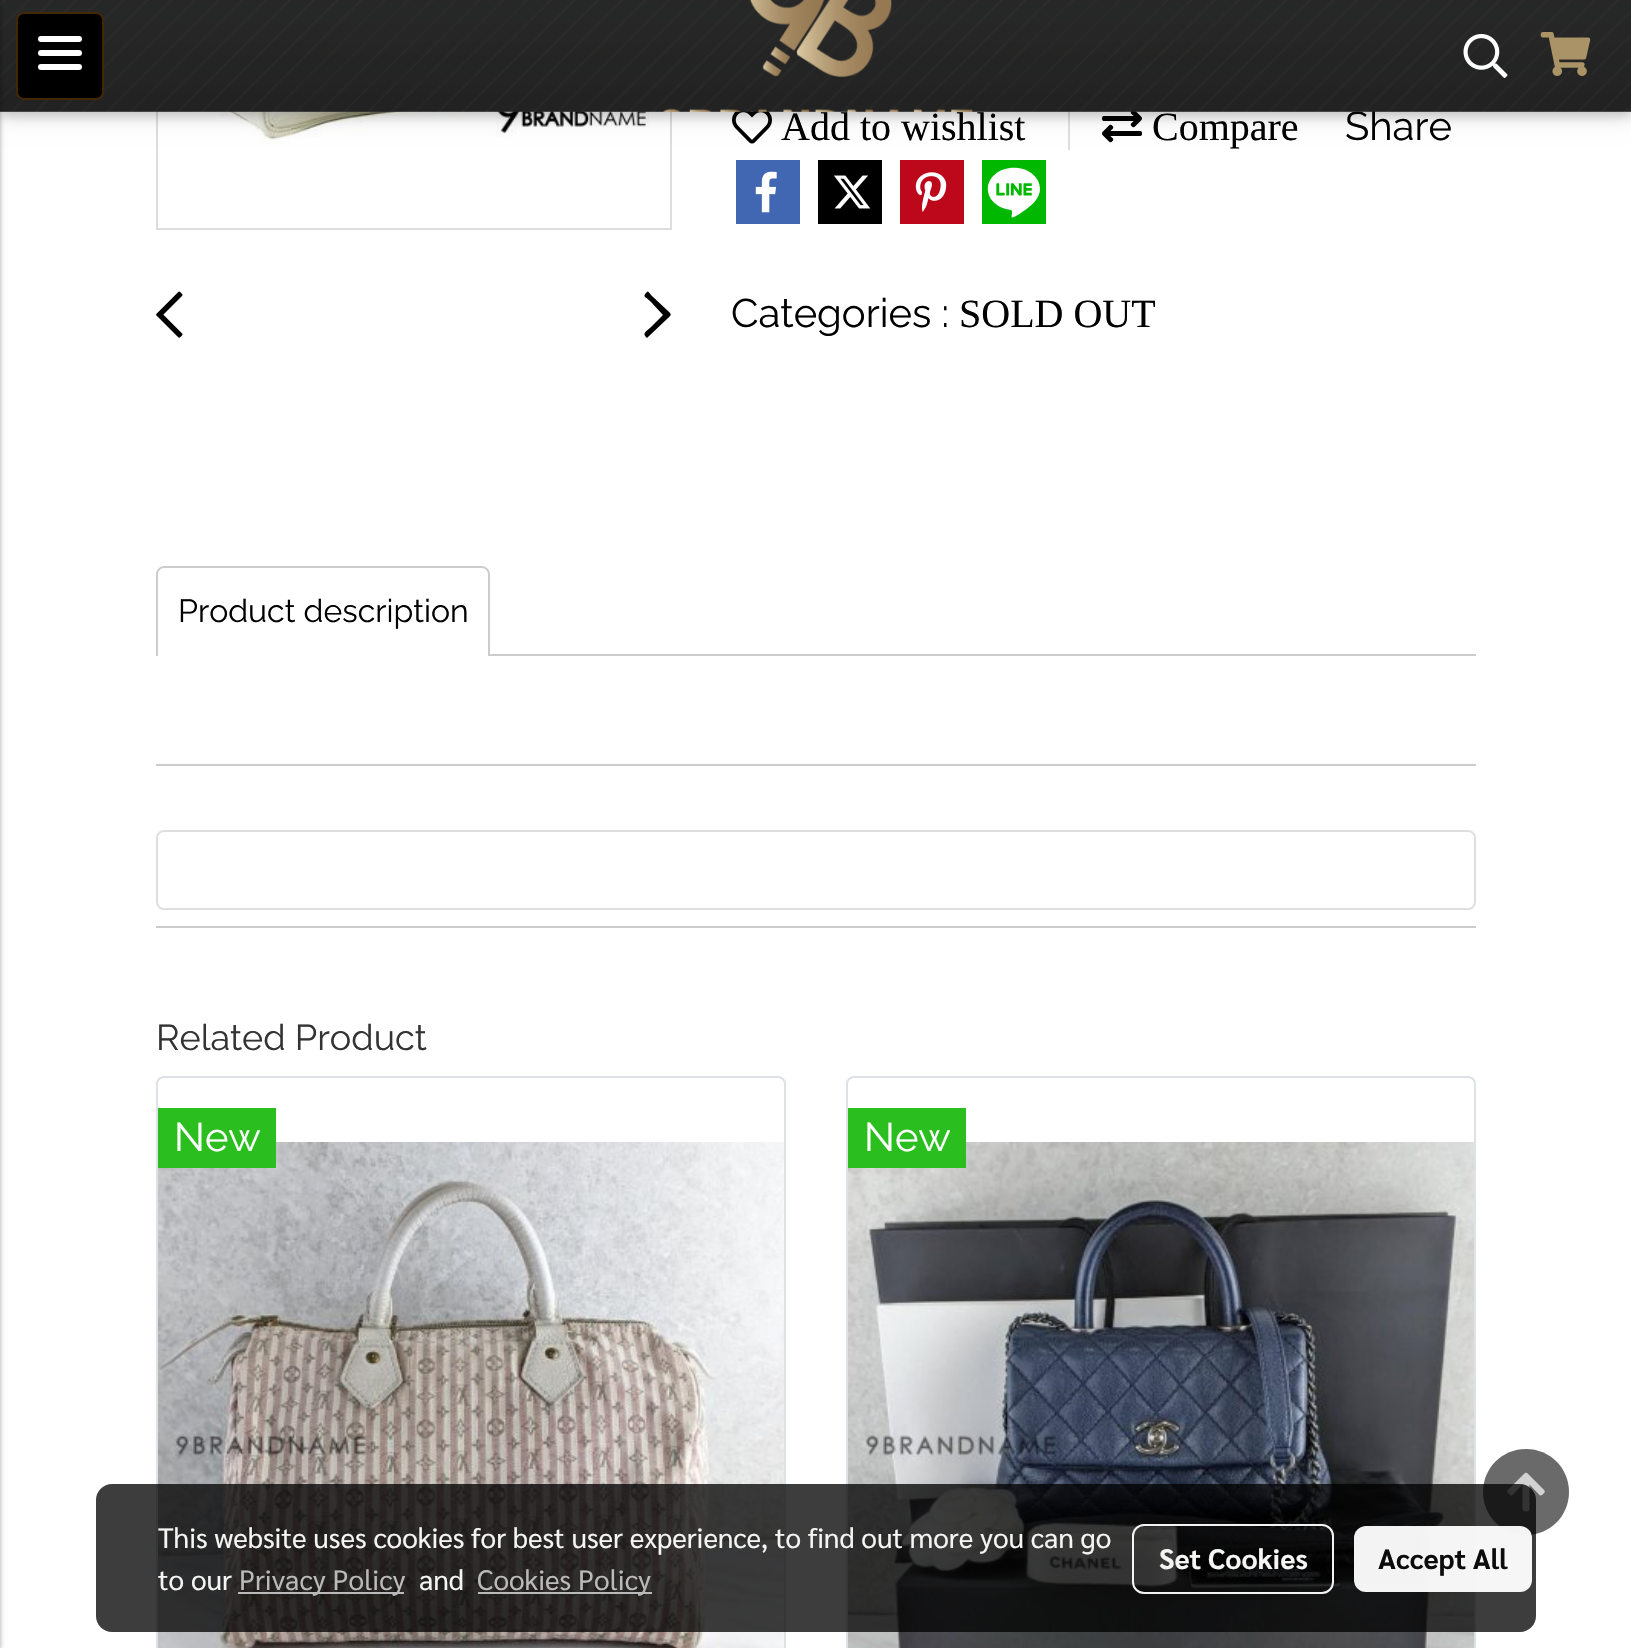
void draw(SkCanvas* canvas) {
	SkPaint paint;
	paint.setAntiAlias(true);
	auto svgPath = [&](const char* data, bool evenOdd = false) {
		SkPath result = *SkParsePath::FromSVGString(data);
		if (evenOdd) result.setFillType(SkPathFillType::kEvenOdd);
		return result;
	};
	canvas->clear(0xffffffff);
	paint.setStroke(true);
	paint.setStrokeWidth(2);
	paint.setColor(0xffdddddd);
	canvas->drawRect(SkRect::MakeXYWH(157, -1, 514, 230), paint);
	canvas->drawImageRect(SkImages::DeferredFromEncodedData(SkData::MakeFromFileName("img4.png")), SkRect::MakeXYWH(189, 111, 460, 33), SkSamplingOptions());
	canvas->drawImageRect(SkImages::DeferredFromEncodedData(SkData::MakeFromFileName("img6.png")), SkRect::MakeXYWH(732, 111, 40, 33), SkSamplingOptions());
	paint.setStroke(false);
	paint.setColor(0xffdedede);
	canvas->drawRect(SkRect::MakeXYWH(1068, 111, 2, 39), paint);
	canvas->drawImageRect(SkImages::DeferredFromEncodedData(SkData::MakeFromFileName("img7.png")), SkRect::MakeXYWH(1102, 111, 40, 32), SkSamplingOptions());
	paint.setColor(0x1f000000);
	paint.setMaskFilter(SkMaskFilter::MakeBlur(kNormal_SkBlurStyle, 10));
	canvas->drawRect(SkRect::MakeXYWH(0, 4, 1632, 112), paint);
	paint.setMaskFilter(nullptr);
	paint.setColor(0x29000000);
	paint.setMaskFilter(SkMaskFilter::MakeBlur(kNormal_SkBlurStyle, 5));
	canvas->drawRect(SkRect::MakeXYWH(0, 4, 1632, 112), paint);
	paint.setMaskFilter(nullptr);
	SkFont f1(fontMgr->matchFamilyStyle("Raleway", SkFontStyle(100, SkFontStyle::kNormal_Width, SkFontStyle::kUpright_Slant)), 40);
	f1.setSubpixel(true);
	paint.setColor(0xff000000);
	canvas->drawString("Share", 1345, 140, f1, paint);
	canvas->drawImageRect(SkImages::DeferredFromEncodedData(SkData::MakeFromFileName("img1.png")), SkRect::MakeXYWH(0, 0, 1631, 112), SkSamplingOptions());
	paint.setColor(0x3d000000);
	paint.setMaskFilter(SkMaskFilter::MakeBlur(kNormal_SkBlurStyle, 2));
	canvas->drawRect(SkRect::MakeXYWH(-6, 2, 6, 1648), paint);
	paint.setMaskFilter(nullptr);
	paint.setColor(0x1f000000);
	paint.setMaskFilter(SkMaskFilter::MakeBlur(kNormal_SkBlurStyle, 3));
	canvas->drawRect(SkRect::MakeXYWH(-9, 2, 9, 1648), paint);
	paint.setMaskFilter(nullptr);
	paint.setColor(0xff000000);
	canvas->drawRoundRect(SkRect::MakeXYWH(17, 13, 86, 86), 7, 7, paint);
	paint.setStroke(true);
	paint.setColor(0xff432700);
	canvas->drawRoundRect(SkRect::MakeXYWH(17, 13, 86, 86), 7, 7, paint);
	paint.setStroke(false);
	paint.setColor(0xffffffff);
	canvas->drawRoundRect(SkRect::MakeXYWH(38, 50, 44, 6), 3, 3, paint);
	canvas->drawRoundRect(SkRect::MakeXYWH(38, 36, 44, 6), 3, 3, paint);
	canvas->drawRoundRect(SkRect::MakeXYWH(38, 64, 44, 6), 3, 3, paint);
	canvas->drawImageRect(SkImages::DeferredFromEncodedData(SkData::MakeFromFileName("img2.png")), SkRect::MakeXYWH(1463, 34, 45, 44), SkSamplingOptions());
	canvas->drawImageRect(SkImages::DeferredFromEncodedData(SkData::MakeFromFileName("img3.png")), SkRect::MakeXYWH(1540, 32, 51, 44), SkSamplingOptions());
	canvas->drawImageRect(SkImages::DeferredFromEncodedData(SkData::MakeFromFileName("img5.png")), SkRect::MakeXYWH(156, 291, 27, 47), SkSamplingOptions());
	paint.setColor(0xff000000);
	canvas->drawPath(svgPath("M647 292C642 297 645 296 651 302L663 315L651 327C647 331 641 333 647 338L648 337L667 319C672 314 672 315 667 310L652 296C650 294 648 290 647 292Z"), paint);
	SkFont f2(fontMgr->matchFamilyStyle("Liberation Serif", SkFontStyle::Normal()), 40);
	f2.setSubpixel(true);
	canvas->drawString("Add to wishlist", 781, 140, f2, paint);
	canvas->drawString("Compare", 1152, 140, f2, paint);
	paint.setColor(0xff4267b2);
	canvas->drawRect(SkRect::MakeXYWH(736, 160, 64, 64), paint);
	canvas->drawImageRect(SkImages::DeferredFromEncodedData(SkData::MakeFromFileName("img8.png")), SkRect::MakeXYWH(755, 171, 22, 42), SkSamplingOptions());
	paint.setColor(0xff000000);
	canvas->drawRect(SkRect::MakeXYWH(818, 160, 64, 64), paint);
	canvas->drawImageRect(SkImages::DeferredFromEncodedData(SkData::MakeFromFileName("img9.png")), SkRect::MakeXYWH(834, 175, 37, 34), SkSamplingOptions());
	paint.setColor(0xffbd081c);
	canvas->drawRect(SkRect::MakeXYWH(900, 160, 64, 64), paint);
	canvas->drawImageRect(SkImages::DeferredFromEncodedData(SkData::MakeFromFileName("img10.png")), SkRect::MakeXYWH(915, 172, 32, 40), SkSamplingOptions());
	paint.setColor(0xff00b800);
	canvas->drawRect(SkRect::MakeXYWH(982, 160, 64, 64), paint);
	canvas->drawImageRect(SkImages::DeferredFromEncodedData(SkData::MakeFromFileName("img11.png")), SkRect::MakeXYWH(987, 167, 53, 51), SkSamplingOptions());
	paint.setColor(0xff000000);
	canvas->drawString("Categories :", 731, 327, f1, paint);
	canvas->drawString("SOLD OUT", 959, 327, f2, paint);
	paint.setColor(0xffcccccc);
	canvas->drawPath(svgPath("M164 566H482C486 566 490 570 490 574V656H156V574C156 570 160 566 164 566ZM164 568H482C485 568 488 571 488 574V656H158V574C158 571 161 568 164 568Z", true), paint);
	SkFont f3(fontMgr->matchFamilyStyle("Raleway", SkFontStyle(100, SkFontStyle::kNormal_Width, SkFontStyle::kUpright_Slant)), 32);
	f3.setSubpixel(true);
	paint.setColor(0xff000000);
	canvas->drawString("Product description", 178, 622, f3, paint);
	paint.setColor(0xffcccccc);
	canvas->drawRect(SkRect::MakeXYWH(490, 654, 986, 2), paint);
	canvas->drawRect(SkRect::MakeXYWH(156, 764, 1320, 2), paint);
	paint.setStroke(true);
	paint.setColor(0xffdfdfdf);
	canvas->drawRoundRect(SkRect::MakeXYWH(157, 831, 1318, 78), 7, 7, paint);
	paint.setStroke(false);
	paint.setColor(0xffcccccc);
	canvas->drawRect(SkRect::MakeXYWH(156, 926, 1320, 2), paint);
	SkFont f4(fontMgr->matchFamilyStyle("Raleway", SkFontStyle(100, SkFontStyle::kNormal_Width, SkFontStyle::kUpright_Slant)), 36);
	f4.setSubpixel(true);
	paint.setColor(0xff333333);
	canvas->drawString("Related Product", 156, 1050, f4, paint);
	paint.setStroke(true);
	paint.setColor(0xffdee2e6);
	canvas->drawRoundRect(SkRect::MakeXYWH(157, 1077, 628, 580), 7, 7, paint);
	canvas->drawImageRect(SkImages::DeferredFromEncodedData(SkData::MakeFromFileName("img12.png")), SkRect::MakeXYWH(158, 1142, 626, 506), SkSamplingOptions());
	paint.setStroke(false);
	paint.setColor(0xff2bbe1f);
	canvas->drawRect(SkRect::MakeXYWH(158, 1108, 118, 60), paint);
	paint.setColor(0xffffffff);
	canvas->drawString("New", 174, 1151, f1, paint);
	paint.setStroke(true);
	paint.setColor(0xffdee2e6);
	canvas->drawRoundRect(SkRect::MakeXYWH(847, 1077, 628, 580), 7, 7, paint);
	canvas->drawImageRect(SkImages::DeferredFromEncodedData(SkData::MakeFromFileName("img13.png")), SkRect::MakeXYWH(848, 1142, 626, 506), SkSamplingOptions());
	paint.setStroke(false);
	paint.setColor(0xff2bbe1f);
	canvas->drawRect(SkRect::MakeXYWH(848, 1108, 118, 60), paint);
	paint.setColor(0xffffffff);
	canvas->drawString("New", 864, 1151, f1, paint);
	paint.setColor(0xff6b6a6a);
	canvas->drawPath(svgPath("M1526 1449C1502 1449 1483 1468 1483 1492C1483 1516 1502 1535 1526 1535C1550 1535 1569 1516 1569 1492C1569 1468 1550 1449 1526 1449Z"), paint);
	canvas->drawImageRect(SkImages::DeferredFromEncodedData(SkData::MakeFromFileName("img14.png")), SkRect::MakeXYWH(1507, 1472, 38, 40), SkSamplingOptions());
	paint.setColor(0xc2000000);
	canvas->drawRoundRect(SkRect::MakeXYWH(96, 1484, 1440, 148), 16, 16, paint);
	SkFont f5(fontMgr->matchFamilyStyle("Sarabun", SkFontStyle::Normal()), 28);
	f5.setSubpixel(true);
	paint.setColor(0xfff5f5f4);
	canvas->drawString("This website uses cookies for best user experience, to find out more you can go", 158, 1548, f5, paint);
	canvas->drawString("to our", 158, 1590, f5, paint);
	paint.setColor(0xf2c2c2c2);
	canvas->drawRect(SkRect::MakeXYWH(238, 1592, 166, 2), paint);
	paint.setColor(0xffbababa);
	canvas->drawString("Privacy Policy", 239, 1590, f5, paint);
	paint.setColor(0xfff5f5f4);
	canvas->drawString("and", 419, 1590, f5, paint);
	paint.setColor(0xf2c2c2c2);
	canvas->drawRect(SkRect::MakeXYWH(478, 1592, 174, 2), paint);
	paint.setColor(0xffbababa);
	canvas->drawString("Cookies Policy", 477, 1590, f5, paint);
	paint.setStroke(true);
	paint.setColor(0xf2ffffff);
	canvas->drawRoundRect(SkRect::MakeXYWH(1133, 1525, 200, 68), 11, 11, paint);
	SkFont f6(fontMgr->matchFamilyStyle("Sarabun", SkFontStyle::Bold()), 28);
	f6.setSubpixel(true);
	paint.setStroke(false);
	paint.setColor(0xfff5f5f4);
	canvas->drawString("Set Cookies", 1159, 1569, f6, paint);
	paint.setColor(0xf2ffffff);
	canvas->drawRoundRect(SkRect::MakeXYWH(1354, 1526, 178, 66), 12, 12, paint);
	paint.setColor(0xff0c0c0c);
	canvas->drawString("Accept All", 1378, 1569, f6, paint);
}
